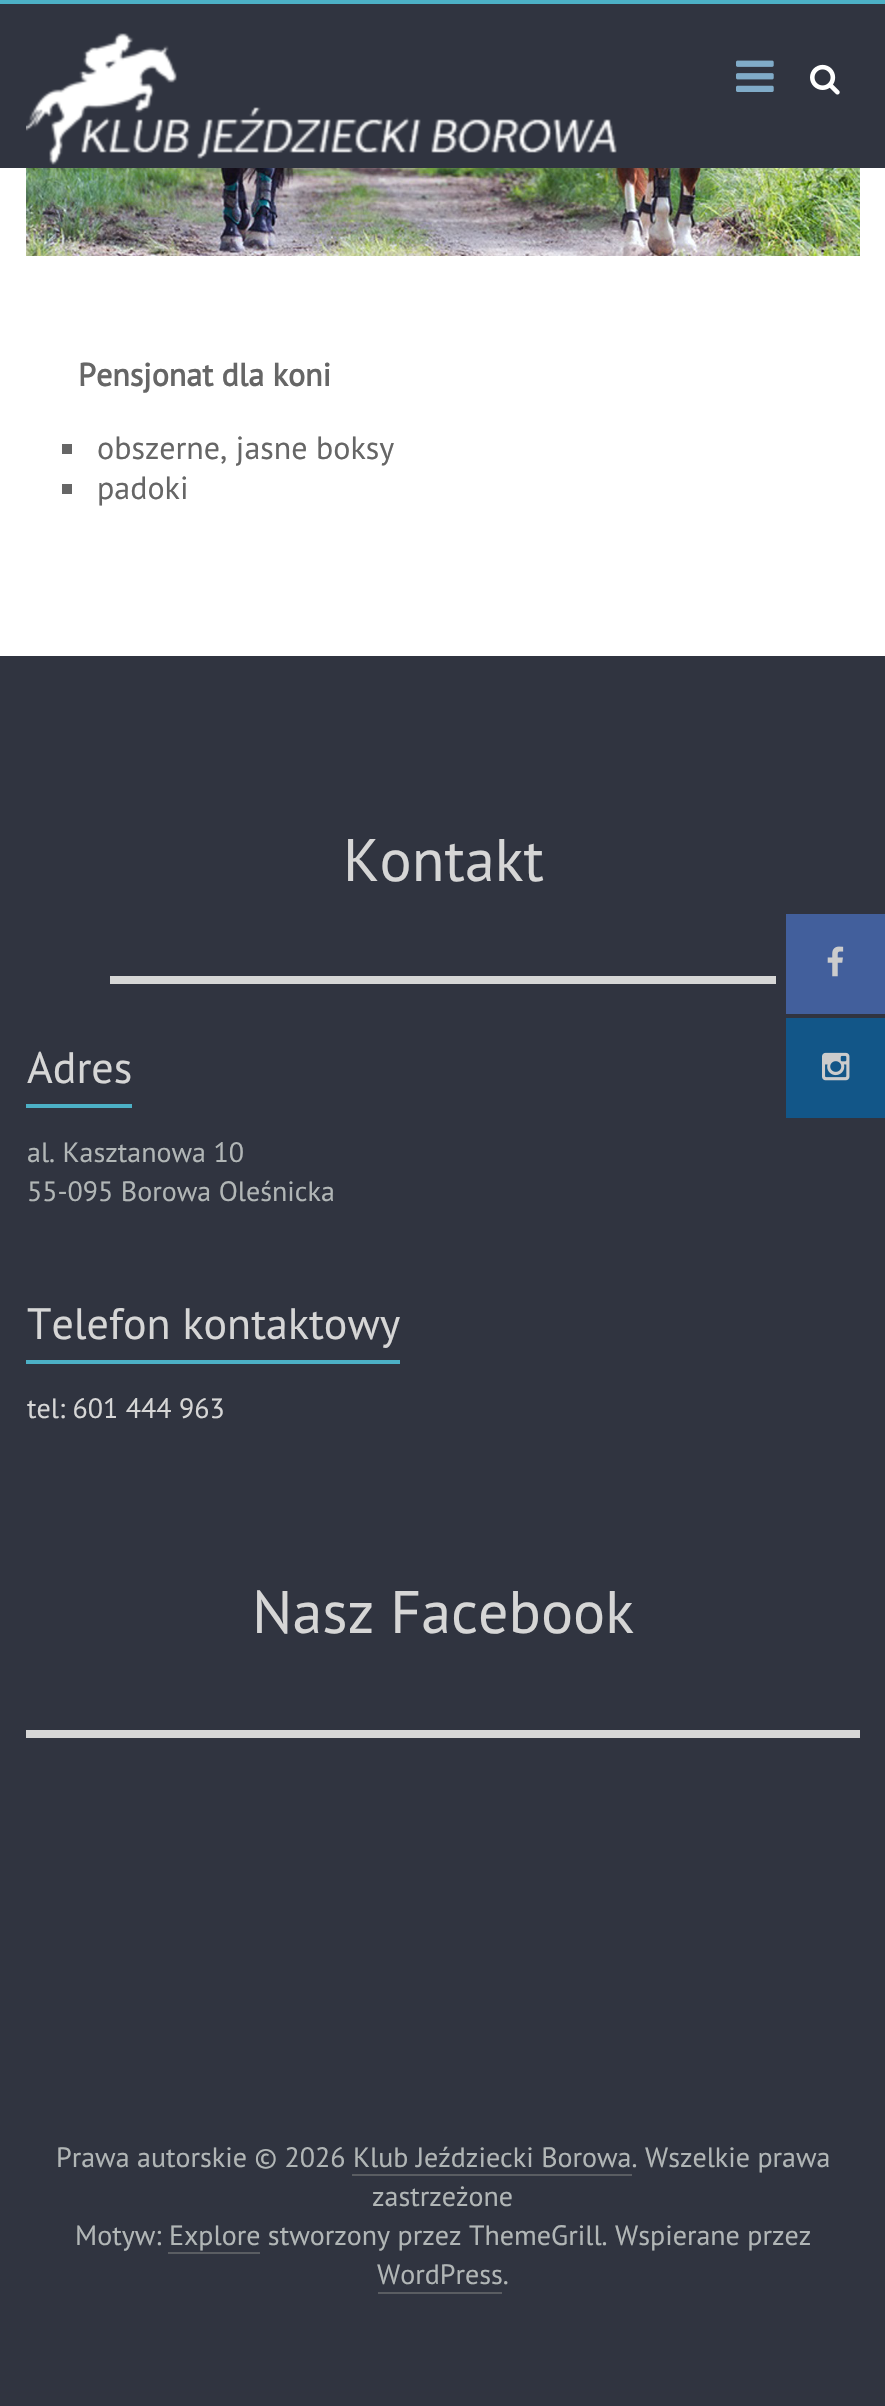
void draw(SkCanvas* canvas) {
	SkPaint paint;
	paint.setAntiAlias(true);
	canvas->clear(0xffffffff);
	paint.setColor(0xff303440);
	canvas->drawRect(SkRect::MakeXYWH(0, 4, 885, 164), paint);
	paint.setColor(0xff4cb0c6);
	canvas->drawRect(SkRect::MakeXYWH(0, 0, 885, 4), paint);
	canvas->drawImageRect(SkImages::DeferredFromEncodedData(SkData::MakeFromFileName("img1.png")), SkRect::MakeXYWH(26, 33, 591, 132), SkSamplingOptions());
	canvas->drawImageRect(SkImages::DeferredFromEncodedData(SkData::MakeFromFileName("img2.png")), SkRect::MakeXYWH(736, 60, 38, 32), SkSamplingOptions());
	canvas->drawImageRect(SkImages::DeferredFromEncodedData(SkData::MakeFromFileName("img3.png")), SkRect::MakeXYWH(810, 64, 30, 31), SkSamplingOptions());
	canvas->drawImageRect(SkImages::DeferredFromEncodedData(SkData::MakeFromFileName("img4.png")), SkRect::MakeXYWH(26, 168, 834, 88), SkSamplingOptions());
	SkFont f1(fontMgr->matchFamilyStyle("PT Sans", SkFontStyle::Bold()), 32);
	f1.setSubpixel(true);
	paint.setColor(0xff666666);
	canvas->drawString("Pensjonat dla koni", 78, 386, f1, paint);
	canvas->drawRect(SkRect::MakeXYWH(62, 444, 10, 10), paint);
	SkFont f2(fontMgr->matchFamilyStyle("PT Sans", SkFontStyle::Normal()), 32);
	f2.setSubpixel(true);
	canvas->drawString("obszerne, jasne boksy", 97, 459, f2, paint);
	canvas->drawRect(SkRect::MakeXYWH(62, 484, 10, 10), paint);
	canvas->drawString("padoki", 97, 499, f2, paint);
	paint.setColor(0xff303440);
	canvas->drawRect(SkRect::MakeXYWH(0, 656, 885, 1750), paint);
	SkFont f3(fontMgr->matchFamilyStyle("PT Sans", SkFontStyle::Normal()), 60);
	f3.setSubpixel(true);
	paint.setColor(0xffd6d6d6);
	canvas->drawString("Kontakt", 343, 881, f3, paint);
	canvas->drawRect(SkRect::MakeXYWH(110, 976, 666, 8), paint);
	SkFont f4(fontMgr->matchFamilyStyle("PT Sans", SkFontStyle::Normal()), 44);
	f4.setSubpixel(true);
	canvas->drawString("Adres", 27, 1083, f4, paint);
	paint.setColor(0xff4cb0c6);
	canvas->drawRect(SkRect::MakeXYWH(26, 1104, 106, 4), paint);
	SkFont f5(fontMgr->matchFamilyStyle("PT Sans", SkFontStyle::Normal()), 28);
	f5.setSubpixel(true);
	paint.setColor(0xffb1b6b6);
	canvas->drawString("al. Kasztanowa 10", 27, 1162, f5, paint);
	canvas->drawString("55-095 Borowa Oleśnicka", 27, 1201, f5, paint);
	paint.setColor(0xffd6d6d6);
	canvas->drawString("Telefon kontaktowy", 27, 1339, f4, paint);
	paint.setColor(0xff4cb0c6);
	canvas->drawRect(SkRect::MakeXYWH(26, 1360, 374, 4), paint);
	paint.setColor(0xffd6d6d6);
	canvas->drawString("tel: 601 444 963", 27, 1418, f5, paint);
	canvas->drawString("Nasz Facebook", 252, 1633, f3, paint);
	canvas->drawRect(SkRect::MakeXYWH(26, 1730, 834, 8), paint);
	paint.setColor(0xffb1b6b6);
	canvas->drawString("Prawa autorskie © 2026 Klub Jeździecki Borowa. Wszelkie prawa", 56, 2167, f5, paint);
	paint.setColor(0xff5a5d62);
	canvas->drawRect(SkRect::MakeXYWH(352, 2174, 280, 2), paint);
	paint.setColor(0xffb1b6b6);
	canvas->drawString("zastrzeżone", 372, 2206, f5, paint);
	canvas->drawString("Motyw: Explore stworzony przez ThemeGrill. Wspierane przez", 75, 2245, f5, paint);
	paint.setColor(0xff5a5d62);
	canvas->drawRect(SkRect::MakeXYWH(168, 2252, 92, 2), paint);
	paint.setColor(0xffb1b6b6);
	canvas->drawString("WordPress.", 377, 2284, f5, paint);
	paint.setColor(0xff5a5d62);
	canvas->drawRect(SkRect::MakeXYWH(378, 2292, 124, 2), paint);
	paint.setColor(0xff425f9c);
	canvas->drawRect(SkRect::MakeXYWH(786, 914, 99, 100), paint);
	canvas->drawImageRect(SkImages::DeferredFromEncodedData(SkData::MakeFromFileName("img5.png")), SkRect::MakeXYWH(827, 946, 17, 31), SkSamplingOptions());
	paint.setColor(0xff125688);
	canvas->drawRect(SkRect::MakeXYWH(786, 1018, 99, 100), paint);
	canvas->drawImageRect(SkImages::DeferredFromEncodedData(SkData::MakeFromFileName("img6.png")), SkRect::MakeXYWH(822, 1052, 28, 29), SkSamplingOptions());
}
